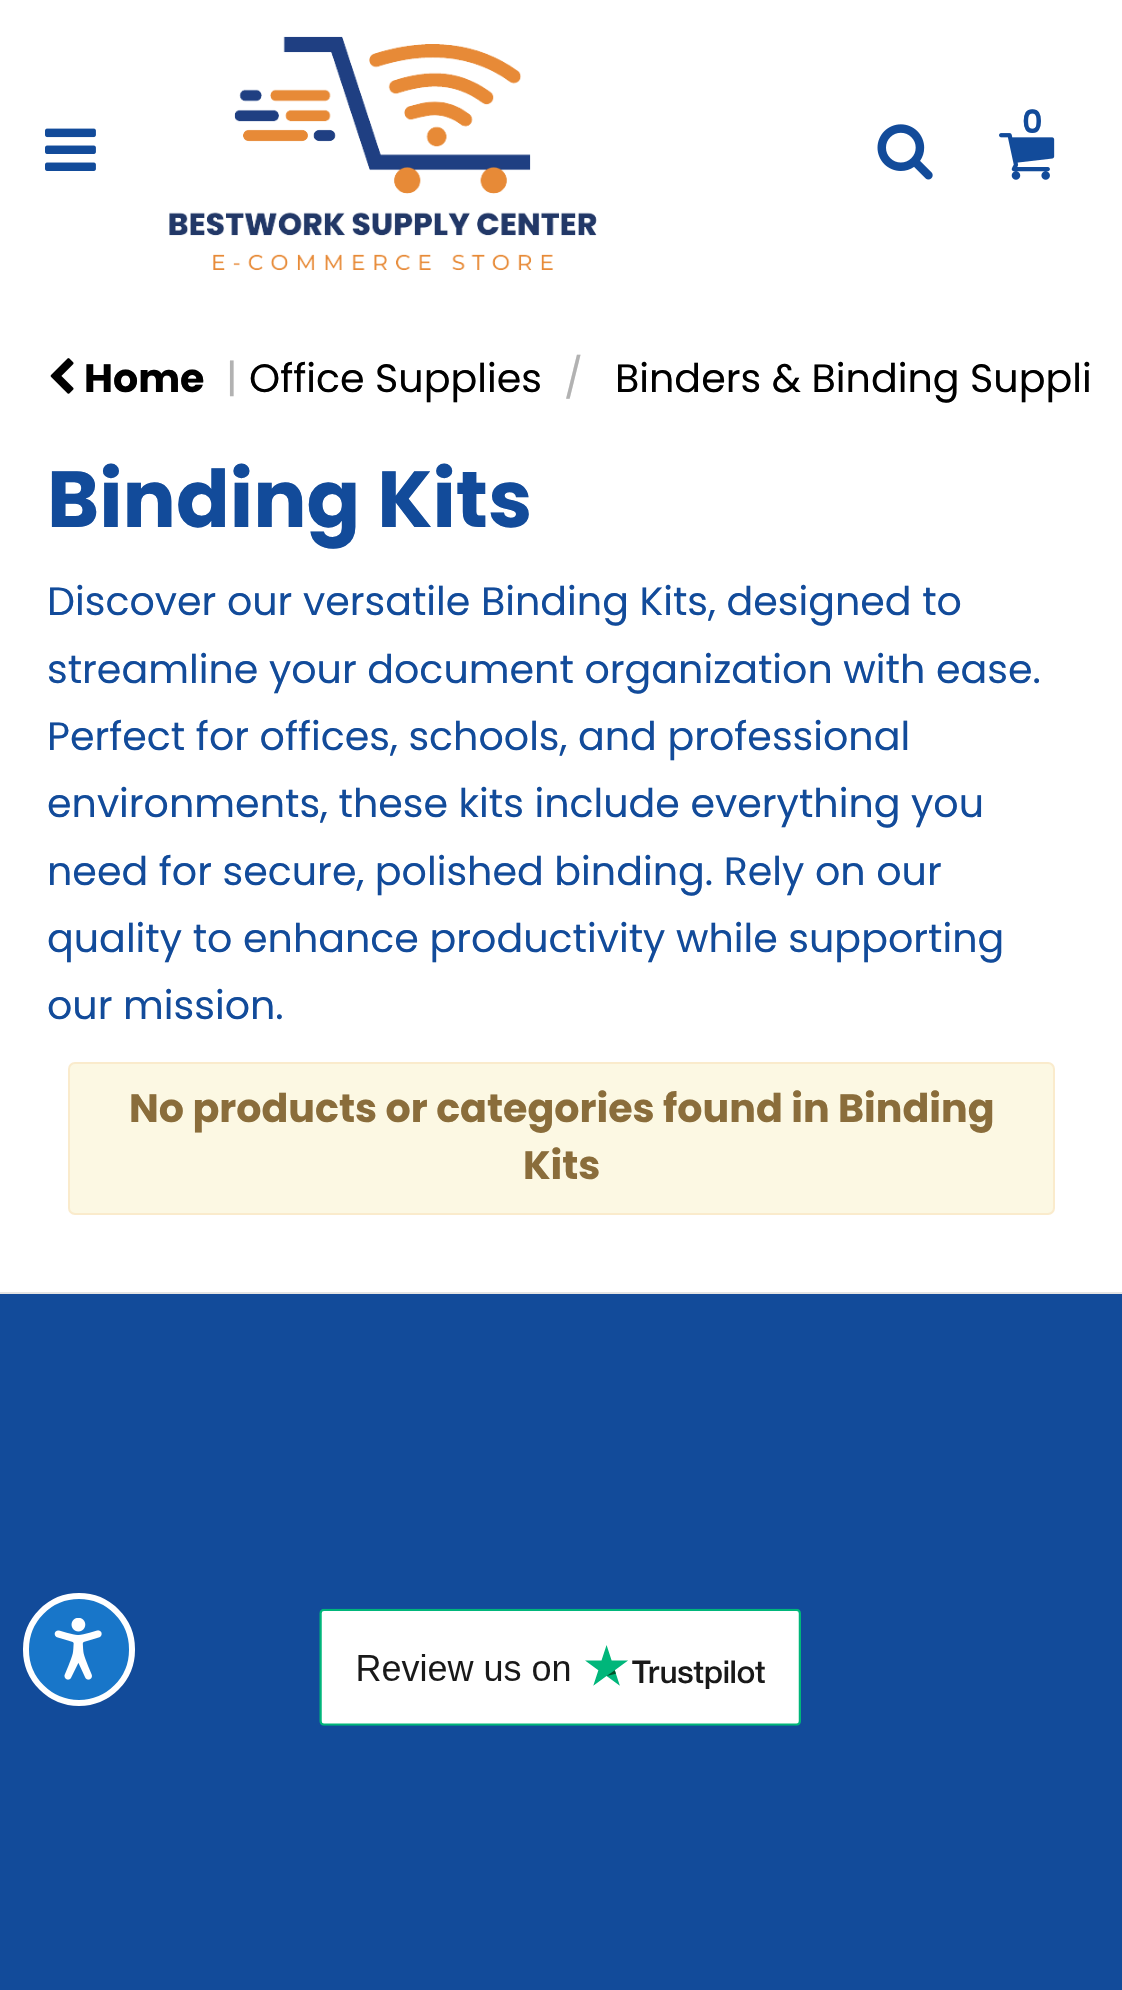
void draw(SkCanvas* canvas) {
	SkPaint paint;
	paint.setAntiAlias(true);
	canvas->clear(0xffffffff);
	canvas->drawImageRect(SkImages::DeferredFromEncodedData(SkData::MakeFromFileName("img1.png")), SkRect::MakeXYWH(169, 36, 428, 235), SkSamplingOptions());
	SkFont f1(fontMgr->matchFamilyStyle("Poppins", SkFontStyle(600, SkFontStyle::kNormal_Width, SkFontStyle::kUpright_Slant)), 32);
	f1.setSubpixel(true);
	paint.setColor(0xff124b9a);
	canvas->drawString("0", 1022, 133, f1, paint);
	canvas->drawImageRect(SkImages::DeferredFromEncodedData(SkData::MakeFromFileName("img2.png")), SkRect::MakeXYWH(999, 133, 56, 47), SkSamplingOptions());
	canvas->drawImageRect(SkImages::DeferredFromEncodedData(SkData::MakeFromFileName("img3.png")), SkRect::MakeXYWH(877, 124, 56, 56), SkSamplingOptions());
	canvas->drawImageRect(SkImages::DeferredFromEncodedData(SkData::MakeFromFileName("img4.png")), SkRect::MakeXYWH(45, 128, 51, 43), SkSamplingOptions());
	canvas->drawImageRect(SkImages::DeferredFromEncodedData(SkData::MakeFromFileName("img5.png")), SkRect::MakeXYWH(50, 358, 24, 36), SkSamplingOptions());
	SkFont f2(fontMgr->matchFamilyStyle("Poppins", SkFontStyle::Bold()), 39.6);
	f2.setSubpixel(true);
	paint.setColor(0xff000000);
	canvas->drawString("Home", 84, 392, f2, paint);
	SkFont f3(fontMgr->matchFamilyStyle("Poppins", SkFontStyle::Normal()), 39.6);
	f3.setSubpixel(true);
	paint.setColor(0xffb2b2b2);
	canvas->drawString("|", 226, 392, f3, paint);
	paint.setColor(0xff000000);
	canvas->drawString("Office Supplies", 249, 392, f3, paint);
	paint.setColor(0xffb2b2b2);
	canvas->drawString("/", 564, 392, f3, paint);
	paint.setColor(0xff000000);
	canvas->drawString("Binders & Binding Suppli", 615, 392, f3, paint);
	SkFont f4(fontMgr->matchFamilyStyle("Poppins", SkFontStyle::Bold()), 79.25);
	f4.setSubpixel(true);
	paint.setColor(0xff124b9a);
	canvas->drawString("Binding Kits", 47, 527, f4, paint);
	canvas->drawString("Discover our versatile Binding Kits, designed to", 47, 615, f3, paint);
	canvas->drawString("streamline your document organization with ease.", 47, 683, f3, paint);
	canvas->drawString("Perfect for offices, schools, and professional", 47, 750, f3, paint);
	canvas->drawString("environments, these kits include everything you", 47, 817, f3, paint);
	canvas->drawString("need for secure, polished binding. Rely on our", 47, 885, f3, paint);
	canvas->drawString("quality to enhance productivity while supporting", 47, 952, f3, paint);
	canvas->drawString("our mission.", 47, 1019, f3, paint);
	paint.setColor(0xfffcf8e3);
	canvas->drawRoundRect(SkRect::MakeXYWH(69, 1063, 985, 151), 6, 6, paint);
	paint.setStroke(true);
	paint.setStrokeWidth(2);
	paint.setColor(0xfffaebcc);
	canvas->drawRoundRect(SkRect::MakeXYWH(69, 1063, 985, 151), 6, 6, paint);
	paint.setStroke(false);
	paint.setColor(0xff8a6d3b);
	canvas->drawString("No products or categories found in Binding", 129, 1122, f2, paint);
	canvas->drawString("Kits", 523, 1179, f2, paint);
	paint.setColor(0xff124b9a);
	canvas->drawRect(SkRect::MakeXYWH(0, 1294, 1122, 696), paint);
	paint.setColor(0xffe4e4e4);
	canvas->drawRect(SkRect::MakeXYWH(0, 1292, 1122, 2), paint);
	canvas->drawImageRect(SkImages::DeferredFromEncodedData(SkData::MakeFromFileName("img6.png")), SkRect::MakeXYWH(319, 1608, 482, 118), SkSamplingOptions());
	paint.setColor(0xff1876c9);
	canvas->drawRoundRect(SkRect::MakeXYWH(26, 1596, 106, 107), 53, 53, paint);
	paint.setStroke(true);
	paint.setStrokeWidth(6);
	paint.setColor(0xffffffff);
	canvas->drawRoundRect(SkRect::MakeXYWH(26, 1596, 106, 107), 53, 53, paint);
	canvas->drawImageRect(SkImages::DeferredFromEncodedData(SkData::MakeFromFileName("img7.png")), SkRect::MakeXYWH(54, 1618, 48, 62), SkSamplingOptions());
}
